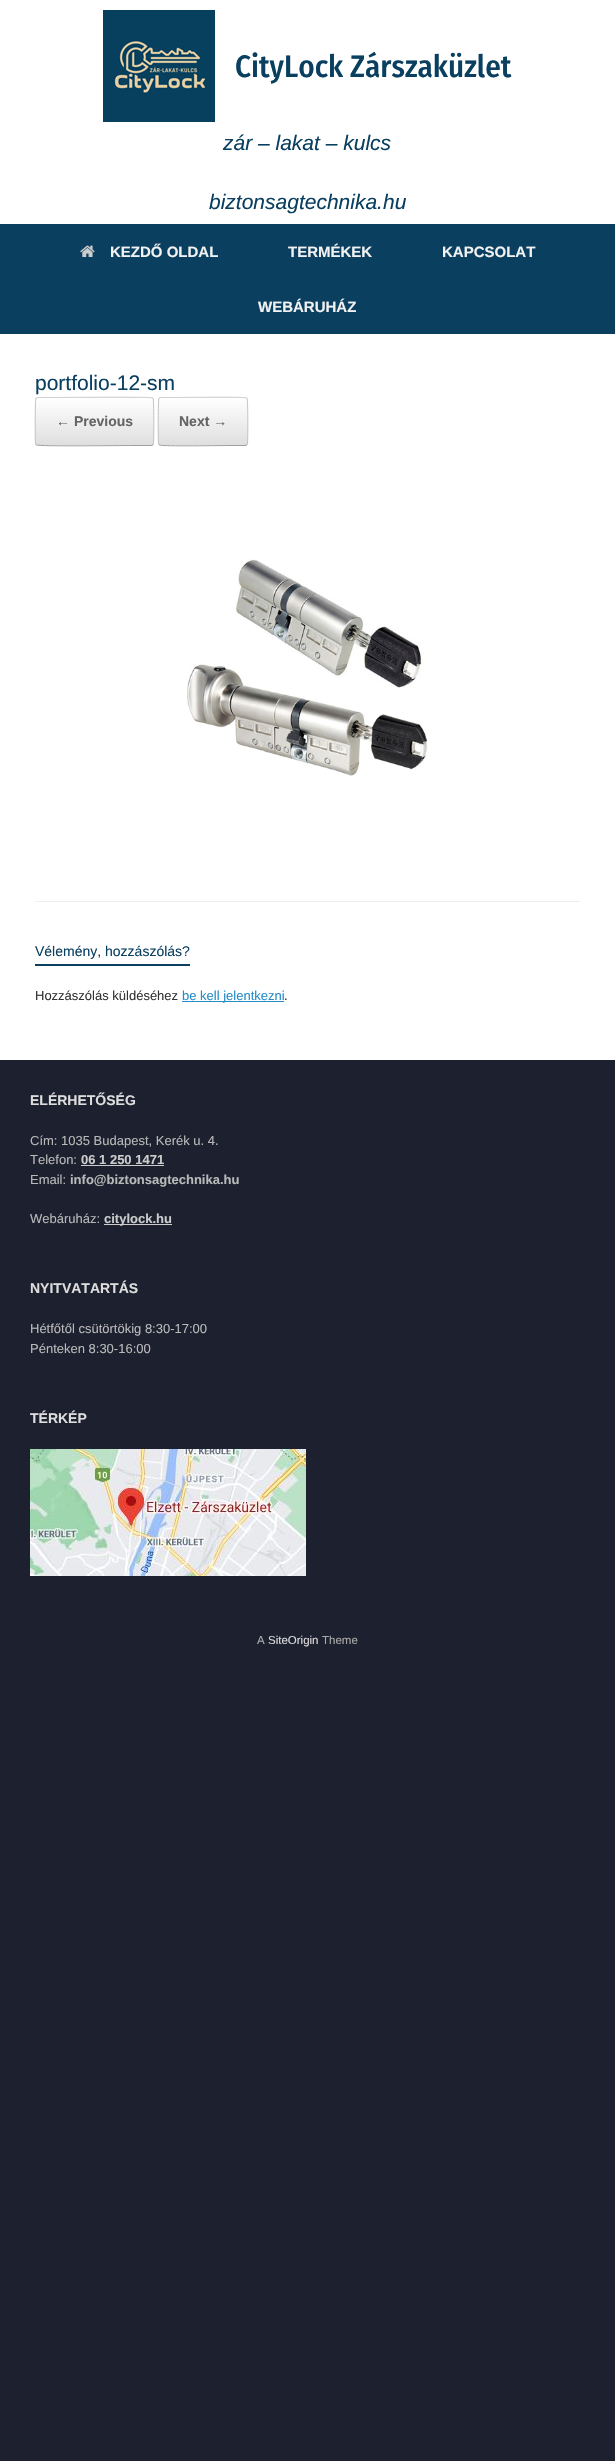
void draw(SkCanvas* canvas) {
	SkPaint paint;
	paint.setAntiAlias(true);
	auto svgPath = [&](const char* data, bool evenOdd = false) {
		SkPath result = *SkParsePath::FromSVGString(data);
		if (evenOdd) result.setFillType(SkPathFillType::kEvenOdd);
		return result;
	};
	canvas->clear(0xff1d202f);
	paint.setColor(0xffffffff);
	canvas->drawRect(SkRect::MakeXYWH(0, 0, 615, 224), paint);
	canvas->drawImageRect(SkImages::DeferredFromEncodedData(SkData::MakeFromFileName("img1.png")), SkRect::MakeXYWH(103, 10, 112, 112), SkSamplingOptions());
	SkFont f1(fontMgr->matchFamilyStyle("Fira Sans Condensed", SkFontStyle(500, SkFontStyle::kNormal_Width, SkFontStyle::kUpright_Slant)), 31);
	f1.setSubpixel(true);
	paint.setColor(0xff0a3f60);
	canvas->drawString("CityLock Zárszaküzlet", 235, 77, f1, paint);
	SkFont f2(fontMgr->matchFamilyStyle("Liberation Sans", SkFontStyle::Italic()), 21);
	f2.setSubpixel(true);
	canvas->drawString("zár – lakat – kulcs", 223, 150, f2, paint);
	canvas->drawString("biztonsagtechnika.hu", 209, 209, f2, paint);
	canvas->drawRect(SkRect::MakeXYWH(0, 224, 615, 110), paint);
	canvas->drawImageRect(SkImages::DeferredFromEncodedData(SkData::MakeFromFileName("img2.png")), SkRect::MakeXYWH(80, 245, 15, 12), SkSamplingOptions());
	SkFont f3(fontMgr->matchFamilyStyle("Liberation Sans", SkFontStyle::Bold()), 15);
	f3.setSubpixel(true);
	paint.setColor(0xfff2f2f2);
	canvas->drawString("KEZDŐ OLDAL", 110, 257, f3, paint);
	canvas->drawString("TERMÉKEK", 288, 257, f3, paint);
	canvas->drawString("KAPCSOLAT", 442, 257, f3, paint);
	canvas->drawString("WEBÁRUHÁZ", 258, 312, f3, paint);
	paint.setColor(0xffffffff);
	canvas->drawRect(SkRect::MakeXYWH(0, 334, 615, 726), paint);
	paint.setColor(0xffeeeeee);
	canvas->drawRect(SkRect::MakeXYWH(35, 901, 545, 1), paint);
	SkFont f4(fontMgr->matchFamilyStyle("Liberation Sans", SkFontStyle::Normal()), 21);
	f4.setSubpixel(true);
	paint.setColor(0xff0a3f60);
	canvas->drawString("portfolio-12-sm", 35, 390, f4, paint);
	canvas->save();
	canvas->clipPath(svgPath("M38 397H151C152.5 397 154 398.5 154 400V443C154 444.5 152.5 446 151 446H38C36.5 446 35 444.5 35 443V400C35 398.5 36.5 397 38 397Z"), true);
	{
		const SkColor colors[] = {0xffdfdfdf, 0xffffffff};
		const float stops[] = {0, 1};
		const SkPoint ends[] = {{36, 398}, {36, 351}};
		paint.setShader(SkGradientShader::MakeLinear(ends, colors, stops, 2, SkTileMode::kClamp));
		paint.setAlpha(255);
	}
	canvas->drawRect(SkRect::MakeXYWH(35, 397, 119, 1), paint);
	{
		const SkColor colors[] = {0xffdfdfdf, 0xffffffff};
		const float stops[] = {0, 1};
		const SkPoint ends[] = {{36, 445}, {36, 398}};
		paint.setShader(SkGradientShader::MakeLinear(ends, colors, stops, 2, SkTileMode::kClamp));
		paint.setAlpha(255);
	}
	canvas->drawRect(SkRect::MakeXYWH(35, 398, 119, 47), paint);
	canvas->restore();
	paint.setStroke(true);
	paint.setStrokeWidth(1);
	paint.setShader(nullptr);
	paint.setColor(0xffd2d2d2);
	canvas->drawPath(svgPath("M36 398L38 397.5H57C66.5 397.5 150.5 396.5 152.5 398H153"), paint);
	paint.setColor(0xffc3c3c3);
	canvas->drawPath(svgPath("M153 398C154 399.5 154 439 153.5 443L153 445"), paint);
	paint.setColor(0xff9f9f9f);
	canvas->drawPath(svgPath("M153 445L151 445.5H132C122.5 445.5 38.5 446.5 36.5 445H36"), paint);
	paint.setColor(0xffc3c3c3);
	canvas->drawPath(svgPath("M36 445L35.5 443C35 439 35 399.5 36 398"), paint);
	SkFont f5(fontMgr->matchFamilyStyle("Liberation Sans", SkFontStyle::Bold()), 14);
	f5.setSubpixel(true);
	paint.setStroke(false);
	paint.setColor(0xff646464);
	canvas->drawString("← Previous", 56, 426, f5, paint);
	canvas->save();
	canvas->clipPath(svgPath("M161 397H245C246.5 397 248 398.5 248 400V443C248 444.5 246.5 446 245 446H161C159.5 446 158 444.5 158 443V400C158 398.5 159.5 397 161 397Z"), true);
	{
		const SkColor colors[] = {0xffdfdfdf, 0xffffffff};
		const float stops[] = {0, 1};
		const SkPoint ends[] = {{159, 398}, {159, 351}};
		paint.setShader(SkGradientShader::MakeLinear(ends, colors, stops, 2, SkTileMode::kClamp));
		paint.setAlpha(255);
	}
	canvas->drawRect(SkRect::MakeXYWH(158, 397, 90, 1), paint);
	{
		const SkColor colors[] = {0xffdfdfdf, 0xffffffff};
		const float stops[] = {0, 1};
		const SkPoint ends[] = {{159, 445}, {159, 398}};
		paint.setShader(SkGradientShader::MakeLinear(ends, colors, stops, 2, SkTileMode::kClamp));
		paint.setAlpha(255);
	}
	canvas->drawRect(SkRect::MakeXYWH(158, 398, 90, 47), paint);
	canvas->restore();
	paint.setStroke(true);
	paint.setShader(nullptr);
	paint.setColor(0xffd2d2d2);
	canvas->drawPath(svgPath("M159 398L161 397.5H175C182.5 397.5 244.5 396.5 246.5 398H247"), paint);
	paint.setColor(0xffc3c3c3);
	canvas->drawPath(svgPath("M247 398C248 399.5 248 439 247.5 443L247 445"), paint);
	paint.setColor(0xff9f9f9f);
	canvas->drawPath(svgPath("M247 445L245 445.5H231C223.5 445.5 161.5 446.5 159.5 445H159"), paint);
	paint.setColor(0xffc3c3c3);
	canvas->drawPath(svgPath("M159 445L158.5 443C158 439 158 399.5 159 398"), paint);
	paint.setStroke(false);
	paint.setColor(0xff646464);
	canvas->drawString("Next →", 179, 426, f5, paint);
	canvas->drawImageRect(SkImages::DeferredFromEncodedData(SkData::MakeFromFileName("img3.png")), SkRect::MakeXYWH(187, 559, 241, 217), SkSamplingOptions());
	paint.setColor(0xff0a3f60);
	canvas->drawRect(SkRect::MakeXYWH(35, 964, 155, 2), paint);
	SkFont f6(fontMgr->matchFamilyStyle("Liberation Sans", SkFontStyle::Normal()), 14);
	f6.setSubpixel(true);
	canvas->drawString("Vélemény, hozzászólás?", 35, 956, f6, paint);
	SkFont f7(fontMgr->matchFamilyStyle("Liberation Sans", SkFontStyle::Normal()), 13);
	f7.setSubpixel(true);
	paint.setColor(0xff333333);
	canvas->drawString("Hozzászólás küldéséhez", 35, 1000, f7, paint);
	paint.setColor(0xff248cc8);
	canvas->drawRect(SkRect::MakeXYWH(182, 1001, 102, 1), paint);
	canvas->drawString("be kell jelentkezni", 182, 1000, f7, paint);
	paint.setColor(0xff333333);
	canvas->drawString(".", 284, 1000, f7, paint);
	paint.setColor(0xffdddddd);
	canvas->drawString("ELÉRHETŐSÉG", 30, 1105, f5, paint);
	paint.setColor(0xffb9b9b9);
	canvas->drawString("Cím: 1035 Budapest, Kerék u. 4.", 30, 1145, f7, paint);
	canvas->drawString("Telefon:", 30, 1164, f7, paint);
	SkFont f8(fontMgr->matchFamilyStyle("Liberation Sans", SkFontStyle::Bold()), 13);
	f8.setSubpixel(true);
	paint.setColor(0xffcccccc);
	canvas->drawString("06 1 250 1471", 81, 1164, f8, paint);
	canvas->drawRect(SkRect::MakeXYWH(81, 1165, 83, 1), paint);
	paint.setColor(0xffb9b9b9);
	canvas->drawString("Email:", 30, 1184, f7, paint);
	canvas->drawString("info@biztonsagtechnika.hu", 70, 1184, f8, paint);
	canvas->drawString("Webáruház:", 30, 1223, f7, paint);
	paint.setColor(0xffcccccc);
	canvas->drawRect(SkRect::MakeXYWH(104, 1224, 68, 1), paint);
	canvas->drawString("citylock.hu", 104, 1223, f8, paint);
	paint.setColor(0xffdddddd);
	canvas->drawString("NYITVATARTÁS", 30, 1293, f5, paint);
	paint.setColor(0xffb9b9b9);
	canvas->drawString("Hétfőtől csütörtökig 8:30-17:00", 30, 1333, f7, paint);
	canvas->drawString("Pénteken 8:30-16:00", 30, 1353, f7, paint);
	paint.setColor(0xffdddddd);
	canvas->drawString("TÉRKÉP", 30, 1423, f5, paint);
	canvas->drawImageRect(SkImages::DeferredFromEncodedData(SkData::MakeFromFileName("img4.png")), SkRect::MakeXYWH(30, 1449, 276, 127), SkSamplingOptions());
	SkFont f9(fontMgr->matchFamilyStyle("Liberation Sans", SkFontStyle::Normal()), 11.5);
	f9.setSubpixel(true);
	paint.setColor(0xffaaaaaa);
	canvas->drawString("A", 257, 1644, f9, paint);
	paint.setColor(0xffdddddd);
	canvas->drawString("SiteOrigin", 268, 1644, f9, paint);
	paint.setColor(0xffaaaaaa);
	canvas->drawString("Theme", 322, 1644, f9, paint);
}
